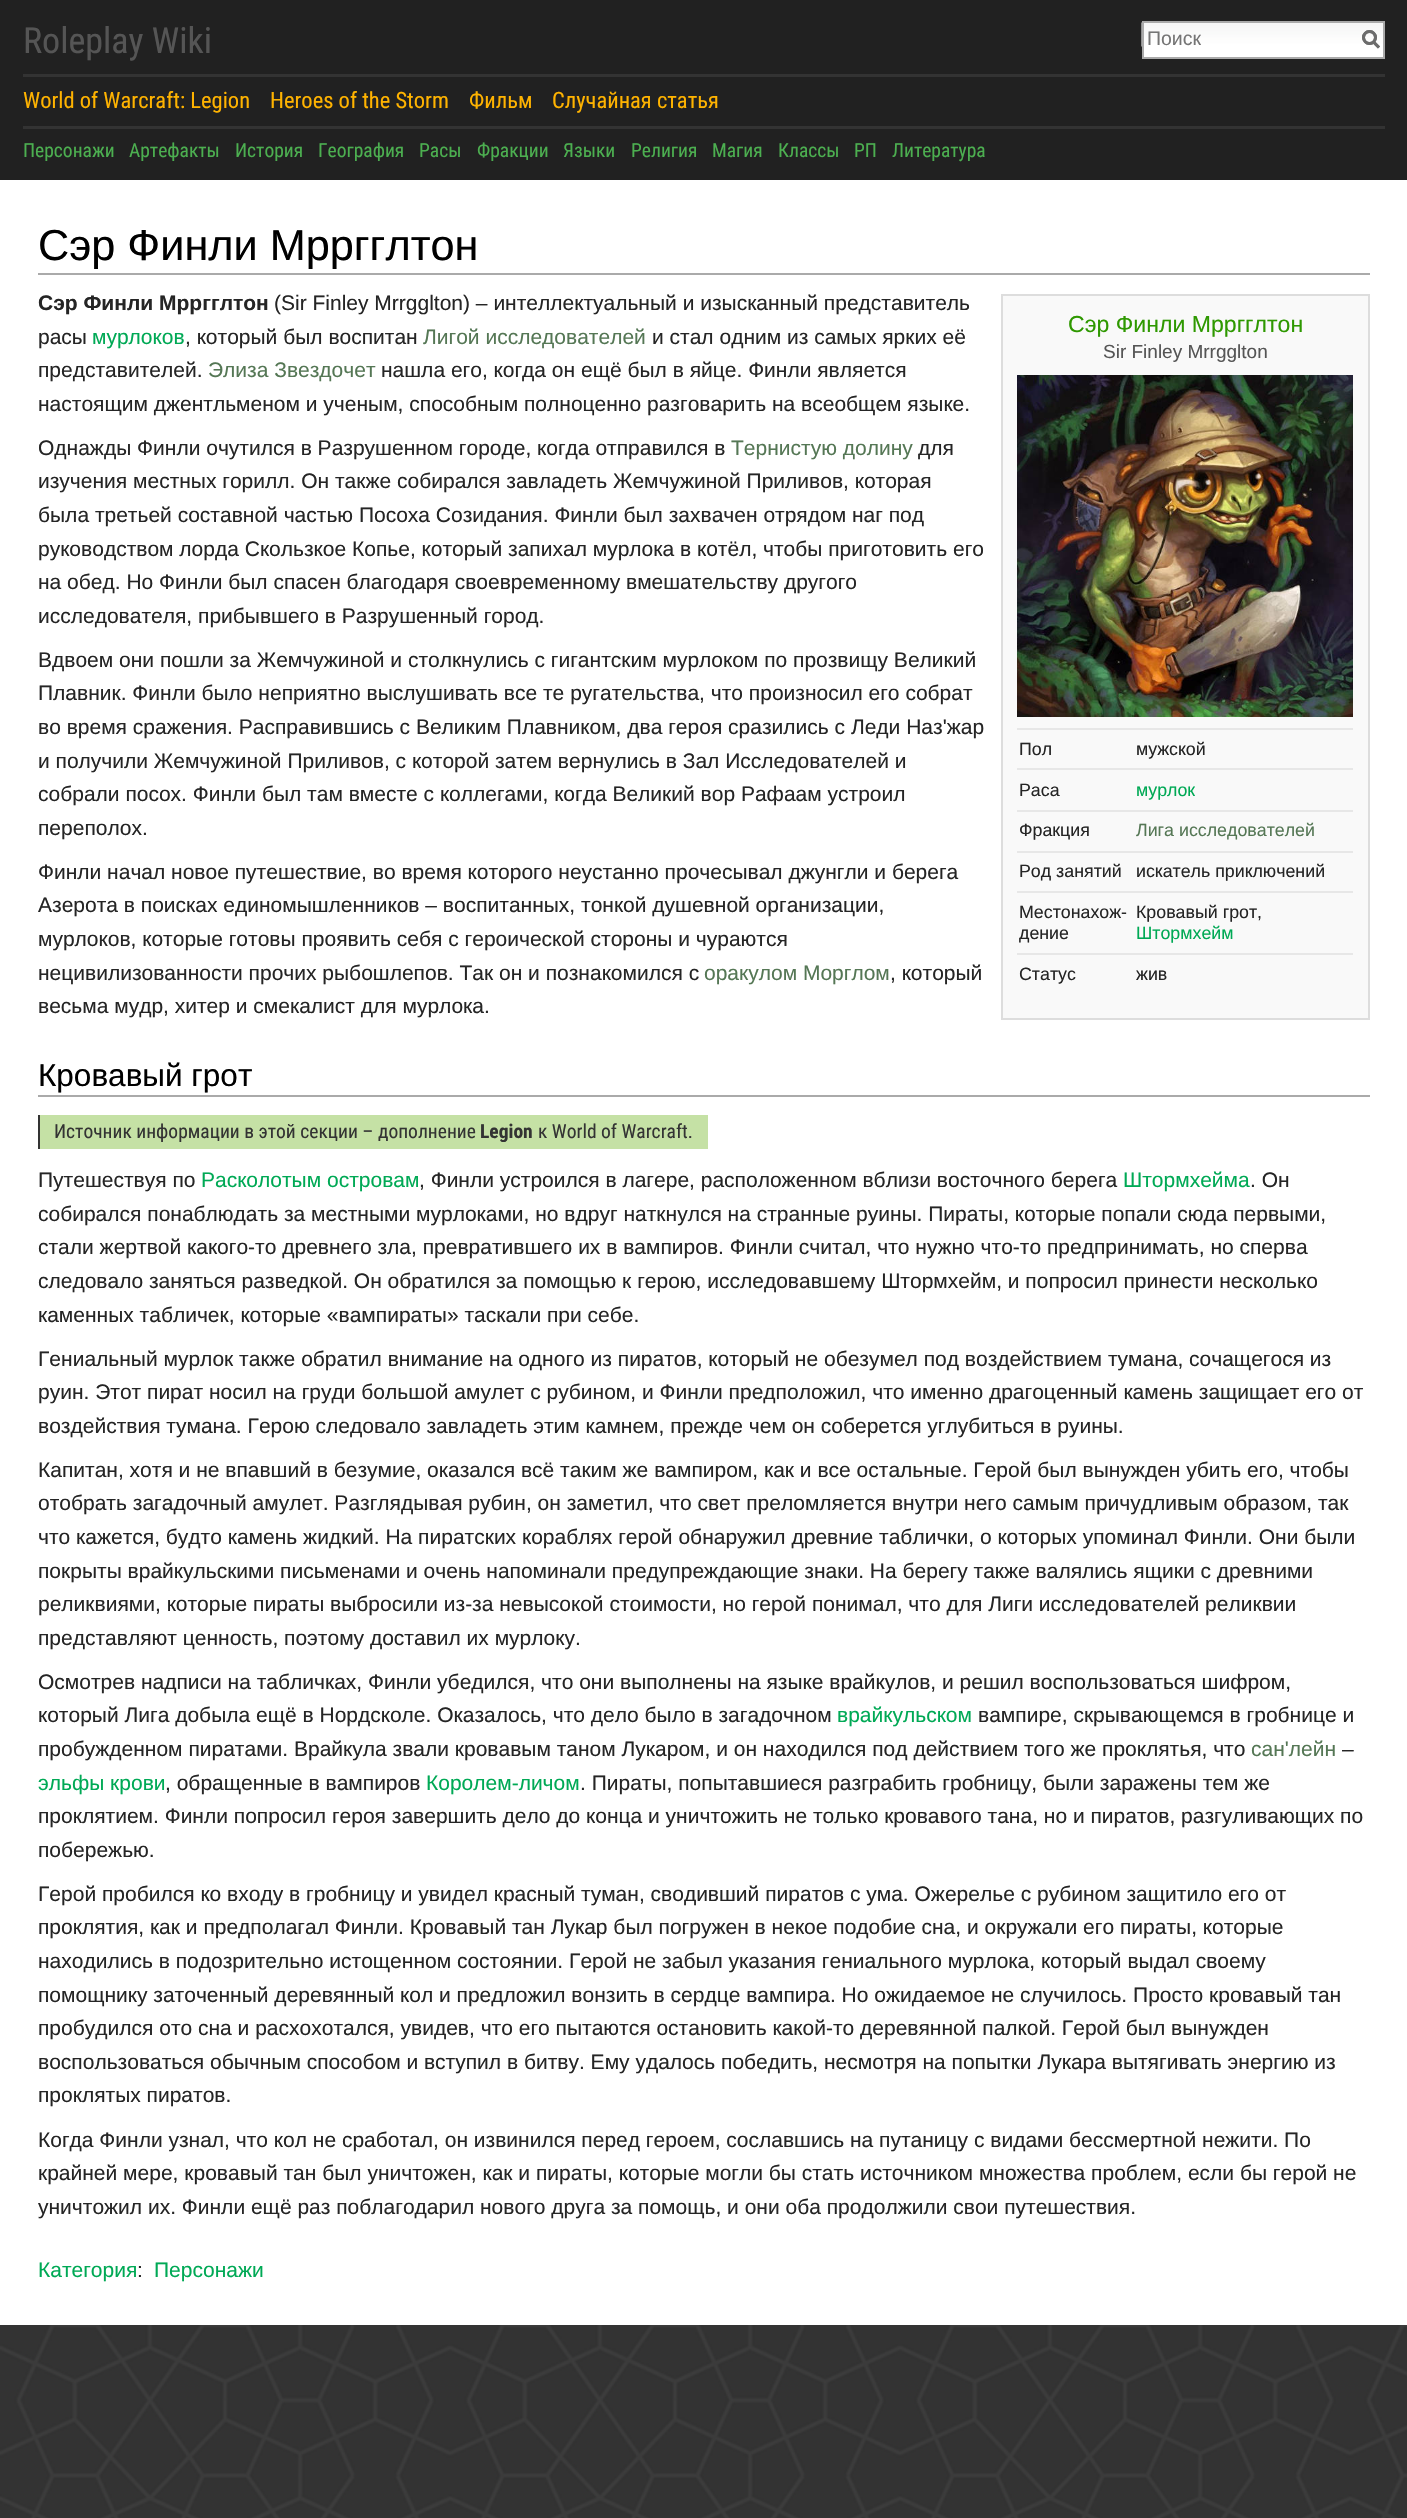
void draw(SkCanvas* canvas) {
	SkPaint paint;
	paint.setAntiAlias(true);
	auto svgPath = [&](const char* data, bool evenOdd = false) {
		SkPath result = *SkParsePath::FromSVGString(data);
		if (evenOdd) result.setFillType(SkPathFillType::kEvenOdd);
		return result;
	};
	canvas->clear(0xffffffff);
	canvas->drawImageRect(SkImages::DeferredFromEncodedData(SkData::MakeFromFileName("img1.png")), SkRect::MakeXYWH(0, 2325, 1407, 193), SkSamplingOptions());
	paint.setColor(0xff212121);
	canvas->drawRect(SkRect::MakeXYWH(0, 0, 1407, 180), paint);
	SkFont f1(fontMgr->matchFamilyStyle("Roboto Condensed", SkFontStyle::Normal()), 36);
	f1.setSubpixel(true);
	paint.setColor(0xff555555);
	canvas->drawString("Roleplay Wiki", 23, 53, f1, paint);
	paint.setColor(0xffffffff);
	canvas->drawRect(SkRect::MakeXYWH(1144, 46, 239, 11), paint);
	canvas->drawImageRect(SkImages::DeferredFromEncodedData(SkData::MakeFromFileName("img2.png")), SkRect::MakeXYWH(1141, 22, 242, 25), SkSamplingOptions());
	paint.setStroke(true);
	paint.setStrokeWidth(2);
	paint.setColor(0xffaaaaaa);
	canvas->drawRect(SkRect::MakeXYWH(1143, 22, 241, 36), paint);
	paint.setStrokeWidth(3);
	paint.setColor(0xff6c6c6c);
	canvas->drawPath(svgPath("M1379 47.5L1373 41.5"), paint);
	canvas->drawCircle(1369.5, 37.5, 6, paint);
	SkFont f2(fontMgr->matchFamilyStyle("Liberation Sans", SkFontStyle::Normal()), 19.5);
	f2.setSubpixel(true);
	paint.setStroke(false);
	paint.setColor(0xff757575);
	canvas->drawString("Поиск", 1147, 45, f2, paint);
	paint.setStroke(true);
	paint.setColor(0xff6c6c6c);
	canvas->drawPath(svgPath("M1379 47.5L1373 41.5"), paint);
	canvas->drawCircle(1369.5, 37.5, 6, paint);
	paint.setStroke(false);
	paint.setColor(0xff333333);
	canvas->drawRect(SkRect::MakeXYWH(23, 74, 1362, 3), paint);
	SkFont f3(fontMgr->matchFamilyStyle("Roboto Condensed", SkFontStyle::Normal()), 22.5);
	f3.setSubpixel(true);
	paint.setColor(0xffffb300);
	canvas->drawString("World of Warcraft: Legion", 23, 108, f3, paint);
	canvas->drawString("Heroes of the Storm", 270, 108, f3, paint);
	canvas->drawString("Фильм", 469, 108, f3, paint);
	canvas->drawString("Случайная статья", 552, 108, f3, paint);
	paint.setColor(0xff333333);
	canvas->drawRect(SkRect::MakeXYWH(23, 126, 1362, 3), paint);
	SkFont f4(fontMgr->matchFamilyStyle("Roboto Condensed", SkFontStyle::Normal()), 19.5);
	f4.setSubpixel(true);
	paint.setColor(0xff4caf50);
	canvas->drawString("Персонажи", 23, 157, f4, paint);
	canvas->drawString("Артефакты", 129, 157, f4, paint);
	canvas->drawString("История", 235, 157, f4, paint);
	canvas->drawString("География", 318, 157, f4, paint);
	canvas->drawString("Расы", 419, 157, f4, paint);
	canvas->drawString("Фракции", 477, 157, f4, paint);
	canvas->drawString("Языки", 563, 157, f4, paint);
	canvas->drawString("Религия", 631, 157, f4, paint);
	canvas->drawString("Магия", 712, 157, f4, paint);
	canvas->drawString("Классы", 778, 157, f4, paint);
	canvas->drawString("РП", 854, 157, f4, paint);
	canvas->drawString("Литература", 892, 157, f4, paint);
	paint.setColor(0xffaaaaaa);
	canvas->drawRect(SkRect::MakeXYWH(38, 273, 1332, 2), paint);
	SkFont f5(fontMgr->matchFamilyStyle("Liberation Sans", SkFontStyle::Normal()), 43.25);
	f5.setSubpixel(true);
	paint.setColor(0xff000000);
	canvas->drawString("Сэр Финли Мрргглтон", 38, 260, f5, paint);
	SkFont f6(fontMgr->matchFamilyStyle("Liberation Sans", SkFontStyle::Bold()), 21);
	f6.setSubpixel(true);
	paint.setColor(0xff252525);
	canvas->drawString("Сэр Финли Мрргглтон", 38, 310, f6, paint);
	SkFont f7(fontMgr->matchFamilyStyle("Liberation Sans", SkFontStyle::Normal()), 21);
	f7.setSubpixel(true);
	canvas->drawString("(Sir Finley Mrrgglton) – интеллектуальный и изысканный представитель", 274, 310, f7, paint);
	canvas->drawString("расы", 38, 344, f7, paint);
	paint.setColor(0xff00a955);
	canvas->drawString("мурлоков", 92, 344, f7, paint);
	paint.setColor(0xff252525);
	canvas->drawString(", который был воспитан", 185, 344, f7, paint);
	paint.setColor(0xff557755);
	canvas->drawString("Лигой исследователей", 423, 344, f7, paint);
	paint.setColor(0xff252525);
	canvas->drawString("и стал одним из самых ярких её", 652, 344, f7, paint);
	canvas->drawString("представителей.", 38, 377, f7, paint);
	paint.setColor(0xff557755);
	canvas->drawString("Элиза Звездочет", 208, 377, f7, paint);
	paint.setColor(0xff252525);
	canvas->drawString("нашла его, когда он ещё был в яйце. Финли является", 381, 377, f7, paint);
	canvas->drawString("настоящим джентльменом и ученым, способным полноценно разговарить на всеобщем языке.", 38, 411, f7, paint);
	paint.setColor(0xfff9f9f9);
	canvas->drawRect(SkRect::MakeXYWH(1002, 295, 367, 724), paint);
	paint.setStroke(true);
	paint.setStrokeWidth(2);
	paint.setColor(0xffdddddd);
	canvas->drawRect(SkRect::MakeXYWH(1002, 295, 367, 724), paint);
	SkFont f8(fontMgr->matchFamilyStyle("Liberation Sans", SkFontStyle::Normal()), 23.1);
	f8.setSubpixel(true);
	paint.setStroke(false);
	paint.setColor(0xff2e9800);
	canvas->drawString("Сэр Финли Мрргглтон", 1068, 332, f8, paint);
	SkFont f9(fontMgr->matchFamilyStyle("Liberation Sans", SkFontStyle::Normal()), 19);
	f9.setSubpixel(true);
	paint.setColor(0xff555555);
	canvas->drawString("Sir Finley Mrrgglton", 1103, 358, f9, paint);
	canvas->drawImageRect(SkImages::DeferredFromEncodedData(SkData::MakeFromFileName("img3.png")), SkRect::MakeXYWH(1017, 375, 336, 342), SkSamplingOptions());
	paint.setColor(0xffe7e7e7);
	canvas->drawRect(SkRect::MakeXYWH(1017, 728, 336, 2), paint);
	canvas->drawRect(SkRect::MakeXYWH(1017, 768, 336, 2), paint);
	SkFont f10(fontMgr->matchFamilyStyle("Liberation Sans", SkFontStyle::Normal()), 17.8);
	f10.setSubpixel(true);
	paint.setColor(0xff252525);
	canvas->drawString("Пол", 1019, 755, f10, paint);
	canvas->drawString("мужской", 1136, 755, f10, paint);
	paint.setColor(0xffe7e7e7);
	canvas->drawRect(SkRect::MakeXYWH(1017, 810, 336, 2), paint);
	paint.setColor(0xff252525);
	canvas->drawString("Раса", 1019, 796, f10, paint);
	paint.setColor(0xff00a955);
	canvas->drawString("мурлок", 1136, 796, f10, paint);
	paint.setColor(0xffe7e7e7);
	canvas->drawRect(SkRect::MakeXYWH(1017, 851, 336, 2), paint);
	paint.setColor(0xff252525);
	canvas->drawString("Фракция", 1019, 836, f10, paint);
	paint.setColor(0xff557755);
	canvas->drawString("Лига исследователей", 1136, 836, f10, paint);
	paint.setColor(0xffe7e7e7);
	canvas->drawRect(SkRect::MakeXYWH(1017, 891, 336, 2), paint);
	paint.setColor(0xff252525);
	canvas->drawString("Род занятий", 1019, 877, f10, paint);
	canvas->drawString("искатель приключений", 1136, 877, f10, paint);
	paint.setColor(0xffe7e7e7);
	canvas->drawRect(SkRect::MakeXYWH(1017, 953, 336, 2), paint);
	paint.setColor(0xff252525);
	canvas->drawString("Местонахож-", 1019, 918, f10, paint);
	canvas->drawString("дение", 1019, 939, f10, paint);
	canvas->drawString("Кровавый грот,", 1136, 918, f10, paint);
	paint.setColor(0xff00a955);
	canvas->drawString("Штормхейм", 1136, 939, f10, paint);
	paint.setColor(0xff252525);
	canvas->drawString("Статус", 1019, 980, f10, paint);
	canvas->drawString("жив", 1136, 980, f10, paint);
	canvas->drawString("Однажды Финли очутился в Разрушенном городе, когда отправился в", 38, 455, f7, paint);
	paint.setColor(0xff557755);
	canvas->drawString("Тернистую долину", 731, 455, f7, paint);
	paint.setColor(0xff252525);
	canvas->drawString("для", 918, 455, f7, paint);
	canvas->drawString("изучения местных горилл. Он также собирался завладеть Жемчужиной Приливов, которая", 38, 488, f7, paint);
	canvas->drawString("была третьей составной частью Посоха Созидания. Финли был захвачен отрядом наг под", 38, 522, f7, paint);
	canvas->drawString("руководством лорда Скользкое Копье, который запихал мурлока в котёл, чтобы приготовить его", 38, 556, f7, paint);
	canvas->drawString("на обед. Но Финли был спасен благодаря своевременному вмешательству другого", 38, 589, f7, paint);
	canvas->drawString("исследователя, прибывшего в Разрушенный город.", 38, 623, f7, paint);
	canvas->drawString("Вдвоем они пошли за Жемчужиной и столкнулись с гигантским мурлоком по прозвищу Великий", 38, 667, f7, paint);
	canvas->drawString("Плавник. Финли было неприятно выслушивать все те ругательства, что произносил его собрат", 38, 700, f7, paint);
	canvas->drawString("во время сражения. Расправившись с Великим Плавником, два героя сразились с Леди Наз'жар", 38, 734, f7, paint);
	canvas->drawString("и получили Жемчужиной Приливов, с которой затем вернулись в Зал Исследователей и", 38, 768, f7, paint);
	canvas->drawString("собрали посох. Финли был там вместе с коллегами, когда Великий вор Рафаам устроил", 38, 801, f7, paint);
	canvas->drawString("переполох.", 38, 835, f7, paint);
	canvas->drawString("Финли начал новое путешествие, во время которого неустанно прочесывал джунгли и берега", 38, 879, f7, paint);
	canvas->drawString("Азерота в поисках единомышленников – воспитанных, тонкой душевной организации,", 38, 912, f7, paint);
	canvas->drawString("мурлоков, которые готовы проявить себя с героической стороны и чураются", 38, 946, f7, paint);
	canvas->drawString("нецивилизованности прочих рыбошлепов. Так он и познакомился с", 38, 980, f7, paint);
	paint.setColor(0xff557755);
	canvas->drawString("оракулом Морглом", 704, 980, f7, paint);
	paint.setColor(0xff252525);
	canvas->drawString(", который", 890, 980, f7, paint);
	canvas->drawString("весьма мудр, хитер и смекалист для мурлока.", 38, 1013, f7, paint);
	paint.setColor(0xffaaaaaa);
	canvas->drawRect(SkRect::MakeXYWH(38, 1095, 1332, 2), paint);
	SkFont f11(fontMgr->matchFamilyStyle("Liberation Sans", SkFontStyle::Normal()), 31.5);
	f11.setSubpixel(true);
	paint.setColor(0xff000000);
	canvas->drawString("Кровавый грот", 38, 1086, f11, paint);
	paint.setColor(0xffc5e1a5);
	canvas->drawRect(SkRect::MakeXYWH(40, 1115, 668, 34), paint);
	paint.setColor(0xff333333);
	canvas->drawRect(SkRect::MakeXYWH(38, 1115, 2, 34), paint);
	canvas->drawString("Источник информации в этой секции – дополнение", 54, 1138, f4, paint);
	SkFont f12(fontMgr->matchFamilyStyle("Roboto Condensed", SkFontStyle::Bold()), 19.5);
	f12.setSubpixel(true);
	canvas->drawString("Legion", 480, 1138, f12, paint);
	canvas->drawString("к World of Warcraft.", 538, 1138, f4, paint);
	paint.setColor(0xff252525);
	canvas->drawString("Путешествуя по", 38, 1187, f7, paint);
	paint.setColor(0xff00a955);
	canvas->drawString("Расколотым островам", 201, 1187, f7, paint);
	paint.setColor(0xff252525);
	canvas->drawString(", Финли устроился в лагере, расположенном вблизи восточного берега", 419, 1187, f7, paint);
	paint.setColor(0xff00a955);
	canvas->drawString("Штормхейма", 1123, 1187, f7, paint);
	paint.setColor(0xff252525);
	canvas->drawString(". Он", 1250, 1187, f7, paint);
	canvas->drawString("собирался понаблюдать за местными мурлоками, но вдруг наткнулся на странные руины. Пираты, которые попали сюда первыми,", 38, 1221, f7, paint);
	canvas->drawString("стали жертвой какого-то древнего зла, превратившего их в вампиров. Финли считал, что нужно что-то предпринимать, но сперва", 38, 1254, f7, paint);
	canvas->drawString("следовало заняться разведкой. Он обратился за помощью к герою, исследовавшему Штормхейм, и попросил принести несколько", 38, 1288, f7, paint);
	canvas->drawString("каменных табличек, которые «вампираты» таскали при себе.", 38, 1322, f7, paint);
	canvas->drawString("Гениальный мурлок также обратил внимание на одного из пиратов, который не обезумел под воздействием тумана, сочащегося из", 38, 1366, f7, paint);
	canvas->drawString("руин. Этот пират носил на груди большой амулет с рубином, и Финли предположил, что именно драгоценный камень защищает его от", 38, 1399, f7, paint);
	canvas->drawString("воздействия тумана. Герою следовало завладеть этим камнем, прежде чем он соберется углубиться в руины.", 38, 1433, f7, paint);
	canvas->drawString("Капитан, хотя и не впавший в безумие, оказался всё таким же вампиром, как и все остальные. Герой был вынужден убить его, чтобы", 38, 1477, f7, paint);
	canvas->drawString("отобрать загадочный амулет. Разглядывая рубин, он заметил, что свет преломляется внутри него самым причудливым образом, так", 38, 1510, f7, paint);
	canvas->drawString("что кажется, будто камень жидкий. На пиратских кораблях герой обнаружил древние таблички, о которых упоминал Финли. Они были", 38, 1544, f7, paint);
	canvas->drawString("покрыты врайкульскими письменами и очень напоминали предупреждающие знаки. На берегу также валялись ящики с древними", 38, 1578, f7, paint);
	canvas->drawString("реликвиями, которые пираты выбросили из-за невысокой стоимости, но герой понимал, что для Лиги исследователей реликвии", 38, 1611, f7, paint);
	canvas->drawString("представляют ценность, поэтому доставил их мурлоку.", 38, 1645, f7, paint);
	canvas->drawString("Осмотрев надписи на табличках, Финли убедился, что они выполнены на языке врайкулов, и решил воспользоваться шифром,", 38, 1689, f7, paint);
	canvas->drawString("который Лига добыла ещё в Нордсколе. Оказалось, что дело было в загадочном", 38, 1722, f7, paint);
	paint.setColor(0xff00a955);
	canvas->drawString("врайкульском", 837, 1722, f7, paint);
	paint.setColor(0xff252525);
	canvas->drawString("вампире, скрывающемся в гробнице и", 978, 1722, f7, paint);
	canvas->drawString("пробужденном пиратами. Врайкула звали кровавым таном Лукаром, и он находился под действием того же проклятья, что", 38, 1756, f7, paint);
	paint.setColor(0xff557755);
	canvas->drawString("сан'лейн", 1251, 1756, f7, paint);
	paint.setColor(0xff252525);
	canvas->drawString("–", 1342, 1756, f7, paint);
	paint.setColor(0xff00a955);
	canvas->drawString("эльфы крови", 38, 1790, f7, paint);
	paint.setColor(0xff252525);
	canvas->drawString(", обращенные в вампиров", 165, 1790, f7, paint);
	paint.setColor(0xff00a955);
	canvas->drawString("Королем-личом", 426, 1790, f7, paint);
	paint.setColor(0xff252525);
	canvas->drawString(". Пираты, попытавшиеся разграбить гробницу, были заражены тем же", 580, 1790, f7, paint);
	canvas->drawString("проклятием. Финли попросил героя завершить дело до конца и уничтожить не только кровавого тана, но и пиратов, разгуливающих по", 38, 1823, f7, paint);
	canvas->drawString("побережью.", 38, 1857, f7, paint);
	canvas->drawString("Герой пробился ко входу в гробницу и увидел красный туман, сводивший пиратов с ума. Ожерелье с рубином защитило его от", 38, 1901, f7, paint);
	canvas->drawString("проклятия, как и предполагал Финли. Кровавый тан Лукар был погружен в некое подобие сна, и окружали его пираты, которые", 38, 1934, f7, paint);
	canvas->drawString("находились в подозрительно истощенном состоянии. Герой не забыл указания гениального мурлока, который выдал своему", 38, 1968, f7, paint);
	canvas->drawString("помощнику заточенный деревянный кол и предложил вонзить в сердце вампира. Но ожидаемое не случилось. Просто кровавый тан", 38, 2002, f7, paint);
	canvas->drawString("пробудился ото сна и расхохотался, увидев, что его пытаются остановить какой-то деревянной палкой. Герой был вынужден", 38, 2035, f7, paint);
	canvas->drawString("воспользоваться обычным способом и вступил в битву. Ему удалось победить, несмотря на попытки Лукара вытягивать энергию из", 38, 2069, f7, paint);
	canvas->drawString("проклятых пиратов.", 38, 2102, f7, paint);
	canvas->drawString("Когда Финли узнал, что кол не сработал, он извинился перед героем, сославшись на путаницу с видами бессмертной нежити. По", 38, 2147, f7, paint);
	canvas->drawString("крайней мере, кровавый тан был уничтожен, как и пираты, которые могли бы стать источником множества проблем, если бы герой не", 38, 2180, f7, paint);
	canvas->drawString("уничтожил их. Финли ещё раз поблагодарил нового друга за помощь, и они оба продолжили свои путешествия.", 38, 2214, f7, paint);
	paint.setColor(0xff00a955);
	canvas->drawString("Категория", 38, 2277, f7, paint);
	paint.setColor(0xff252525);
	canvas->drawString(":", 137, 2277, f7, paint);
	paint.setColor(0xff00a955);
	canvas->drawString("Персонажи", 154, 2277, f7, paint);
}
